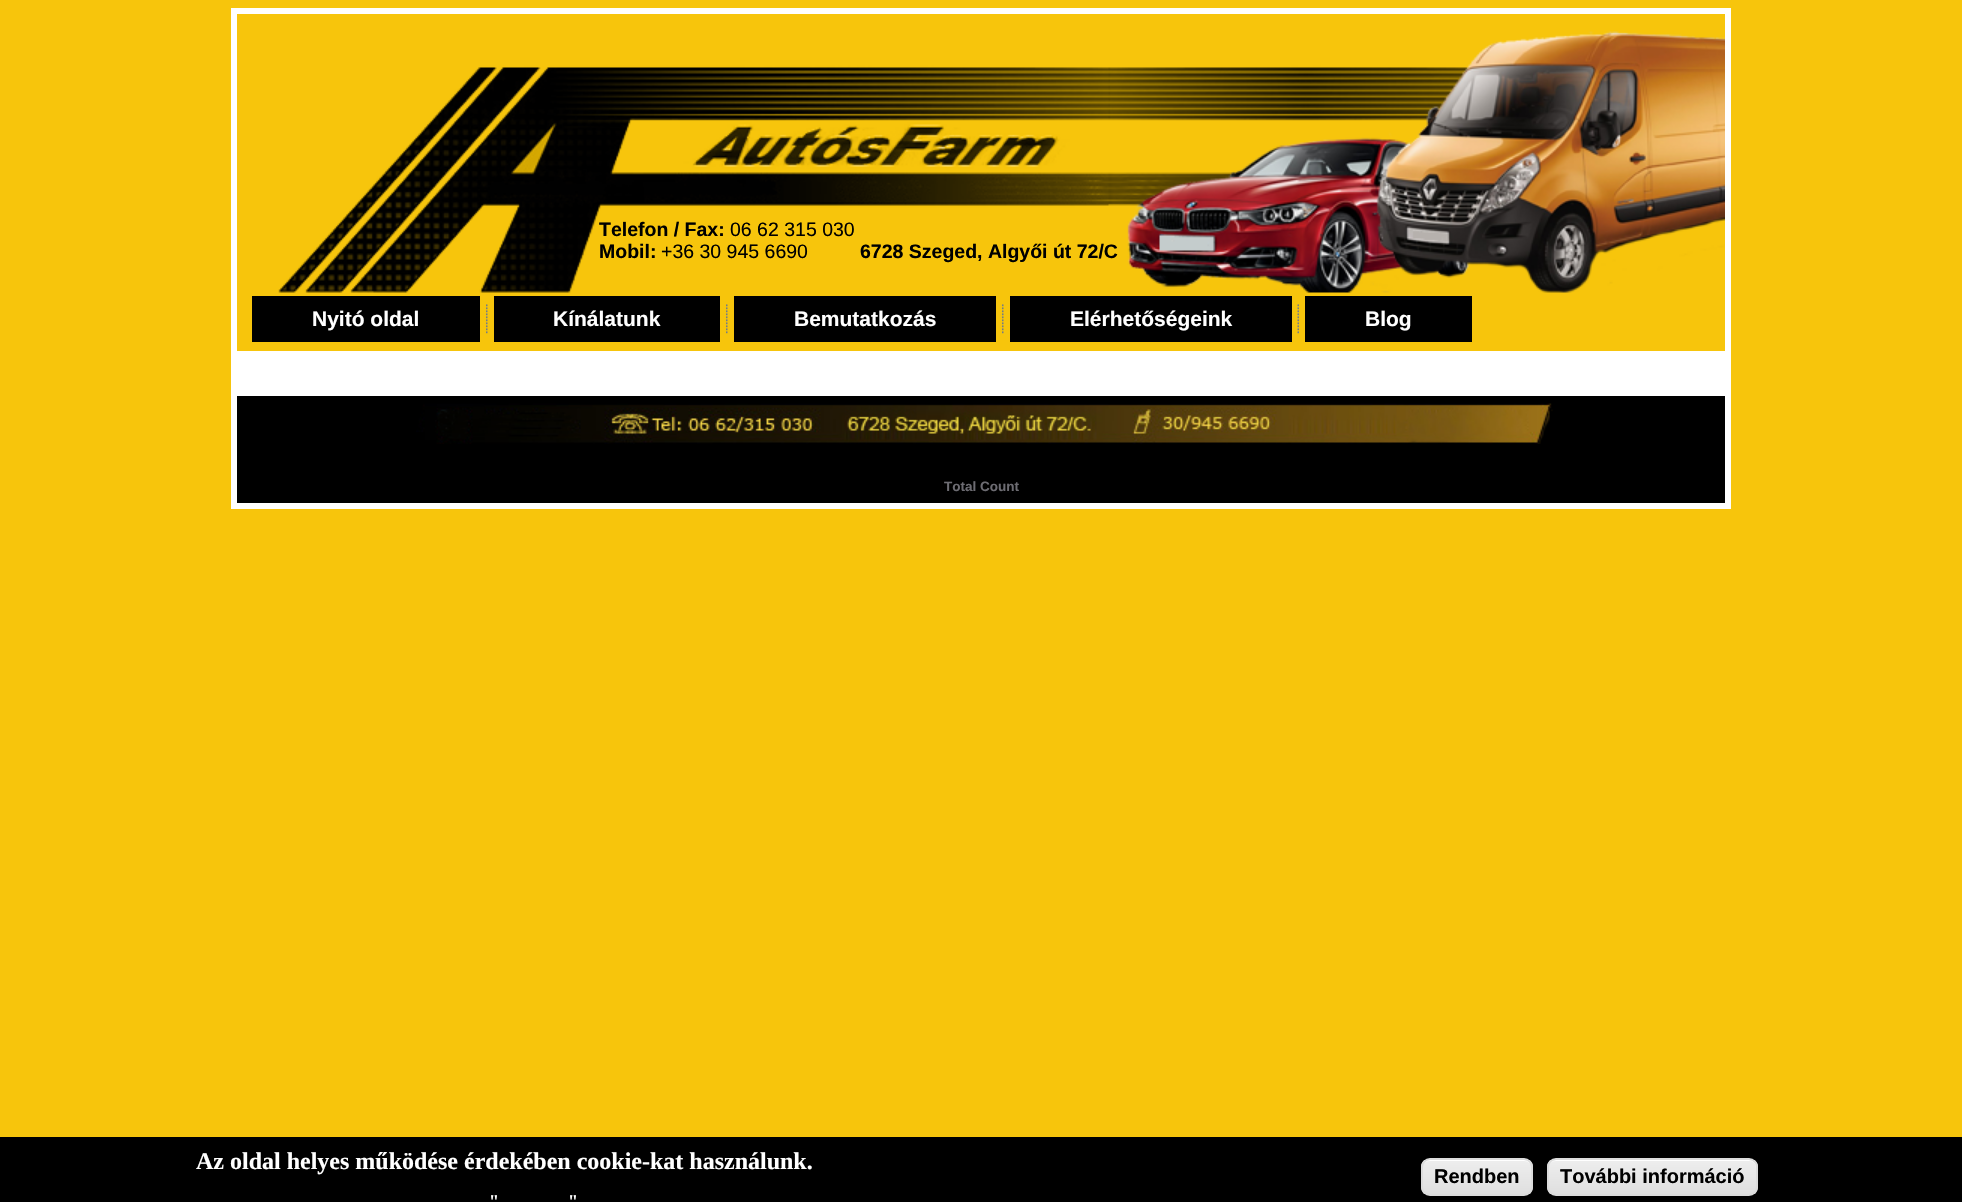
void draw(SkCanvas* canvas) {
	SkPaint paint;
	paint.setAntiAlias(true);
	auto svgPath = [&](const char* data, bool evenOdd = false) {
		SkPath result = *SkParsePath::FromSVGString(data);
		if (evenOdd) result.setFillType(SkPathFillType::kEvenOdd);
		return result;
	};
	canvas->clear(0xfff7c50c);
	paint.setColor(0xffffffff);
	canvas->drawRect(SkRect::MakeXYWH(231, 8, 1500, 501), paint);
	paint.setColor(0xfff7c50c);
	canvas->drawRect(SkRect::MakeXYWH(237, 14, 1488, 337), paint);
	canvas->drawImageRect(SkImages::DeferredFromEncodedData(SkData::MakeFromFileName("img1.png")), SkRect::MakeXYWH(278, 31, 1447, 262), SkSamplingOptions());
	SkFont f1(fontMgr->matchFamilyStyle("Liberation Sans", SkFontStyle::Bold()), 19.5);
	f1.setSubpixel(true);
	paint.setColor(0xff000000);
	canvas->drawString("Telefon / Fax:", 599, 236, f1, paint);
	SkFont f2(fontMgr->matchFamilyStyle("Liberation Sans", SkFontStyle::Normal()), 19.5);
	f2.setSubpixel(true);
	canvas->drawString("06 62 315 030", 730, 236, f2, paint);
	canvas->drawString("Mobil:", 599, 258, f1, paint);
	canvas->drawString("+36 30 945 6690", 661, 258, f2, paint);
	canvas->drawString("6728 Szeged, Algyői út 72/C", 860, 258, f1, paint);
	canvas->drawRect(SkRect::MakeXYWH(252, 296, 228, 46), paint);
	SkFont f3(fontMgr->matchFamilyStyle("Liberation Sans", SkFontStyle::Bold()), 21);
	f3.setSubpixel(true);
	paint.setColor(0xffffffff);
	canvas->drawString("Nyitó oldal", 312, 326, f3, paint);
	canvas->drawImageRect(SkImages::DeferredFromEncodedData(SkData::MakeFromFileName("img2.png")), SkRect::MakeXYWH(486, 304, 2, 30), SkSamplingOptions());
	paint.setColor(0xff000000);
	canvas->drawRect(SkRect::MakeXYWH(494, 296, 226, 46), paint);
	paint.setColor(0xffffffff);
	canvas->drawString("Kínálatunk", 553, 326, f3, paint);
	canvas->drawImageRect(SkImages::DeferredFromEncodedData(SkData::MakeFromFileName("img2.png")), SkRect::MakeXYWH(726, 304, 2, 30), SkSamplingOptions());
	paint.setColor(0xff000000);
	canvas->drawRect(SkRect::MakeXYWH(734, 296, 262, 46), paint);
	paint.setColor(0xffffffff);
	canvas->drawString("Bemutatkozás", 794, 326, f3, paint);
	canvas->drawImageRect(SkImages::DeferredFromEncodedData(SkData::MakeFromFileName("img2.png")), SkRect::MakeXYWH(1002, 304, 2, 30), SkSamplingOptions());
	paint.setColor(0xff000000);
	canvas->drawRect(SkRect::MakeXYWH(1010, 296, 282, 46), paint);
	paint.setColor(0xffffffff);
	canvas->drawString("Elérhetőségeink", 1070, 326, f3, paint);
	canvas->drawImageRect(SkImages::DeferredFromEncodedData(SkData::MakeFromFileName("img3.png")), SkRect::MakeXYWH(1297, 304, 2, 30), SkSamplingOptions());
	paint.setColor(0xff000000);
	canvas->drawRect(SkRect::MakeXYWH(1305, 296, 167, 46), paint);
	paint.setColor(0xffffffff);
	canvas->drawString("Blog", 1365, 326, f3, paint);
	paint.setColor(0xff000000);
	canvas->drawRect(SkRect::MakeXYWH(237, 396, 1488, 107), paint);
	canvas->drawImageRect(SkImages::DeferredFromEncodedData(SkData::MakeFromFileName("img4.png")), SkRect::MakeXYWH(416, 403, 1137, 41), SkSamplingOptions());
	SkFont f4(fontMgr->matchFamilyStyle("Liberation Sans", SkFontStyle::Bold()), 13.5);
	f4.setSubpixel(true);
	paint.setColor(0xff6d6c72);
	canvas->drawString("Total Count", 944, 491, f4, paint);
	paint.setColor(0xff000000);
	canvas->drawRect(SkRect::MakeXYWH(0, 1137, 1962, 65), paint);
	SkFont f5(fontMgr->matchFamilyStyle("Liberation Serif", SkFontStyle::Bold()), 24);
	f5.setSubpixel(true);
	paint.setColor(0xffffffff);
	canvas->drawString("Az oldal helyes működése érdekében cookie-kat használunk.", 196, 1169, f5, paint);
	SkFont f6(fontMgr->matchFamilyStyle("Liberation Serif", SkFontStyle::Bold()), 18);
	f6.setSubpixel(true);
	canvas->drawString("\"", 489, 1207, f6, paint);
	canvas->drawString("\"", 568, 1207, f6, paint);
	canvas->save();
	canvas->clipPath(svgPath("M1430 1158H1524C1529 1158 1533 1162 1533 1167V1187C1533 1192 1529 1196 1524 1196H1430C1425 1196 1421 1192 1421 1187V1167C1421 1162 1425 1158 1430 1158Z"), true);
	{
		const SkColor colors[] = {0xffededed, 0xffdfdfdf};
		const float stops[] = {0.05, 1};
		const SkPoint ends[] = {{1477, 1160}, {1477, 1194}};
		paint.setShader(SkGradientShader::MakeLinear(ends, colors, stops, 2, SkTileMode::kClamp));
		paint.setAlpha(255);
	}
	canvas->drawRect(SkRect::MakeXYWH(1421, 1160, 112, 34), paint);
	canvas->restore();
	paint.setShader(nullptr);
	paint.setColor(0xffffffff);
	canvas->drawPath(svgPath("M1430 1161H1524C1528 1161 1532 1164 1532 1168C1532 1164 1528 1160 1524 1160H1430C1426 1160 1422 1164 1422 1168C1422 1164 1425 1161 1430 1161Z"), paint);
	paint.setStroke(true);
	paint.setStrokeWidth(2);
	paint.setColor(0xffdcdcdc);
	canvas->drawRoundRect(SkRect::MakeXYWH(1422, 1159, 110, 36), 8, 8, paint);
	SkFont f7(fontMgr->matchFamilyStyle("Liberation Sans", SkFontStyle::Bold()), 20);
	f7.setSubpixel(true);
	paint.setStroke(false);
	paint.setColor(0xff000000);
	canvas->drawString("Rendben", 1434, 1183, f7, paint);
	canvas->save();
	canvas->clipPath(svgPath("M1556 1158H1749C1754 1158 1758 1162 1758 1167V1187C1758 1192 1754 1196 1749 1196H1556C1551 1196 1547 1192 1547 1187V1167C1547 1162 1551 1158 1556 1158Z"), true);
	{
		const SkColor colors[] = {0xffededed, 0xffdfdfdf};
		const float stops[] = {0.05, 1};
		const SkPoint ends[] = {{1652, 1160}, {1652, 1194}};
		paint.setShader(SkGradientShader::MakeLinear(ends, colors, stops, 2, SkTileMode::kClamp));
		paint.setAlpha(255);
	}
	canvas->drawRect(SkRect::MakeXYWH(1547, 1160, 211, 34), paint);
	canvas->restore();
	paint.setShader(nullptr);
	paint.setColor(0xffffffff);
	canvas->drawPath(svgPath("M1556 1161H1749C1757 1161 1756 1169 1756 1175V1190C1756 1189 1757 1188 1757 1186V1168C1757 1164 1753 1160 1749 1160H1556C1552 1160 1548 1164 1548 1168C1548 1164 1551 1161 1556 1161Z"), paint);
	paint.setStroke(true);
	paint.setColor(0xffdcdcdc);
	canvas->drawRoundRect(SkRect::MakeXYWH(1548, 1159, 209, 36), 8, 8, paint);
	paint.setStroke(false);
	paint.setColor(0xff000000);
	canvas->drawString("További információ", 1560, 1183, f7, paint);
}
